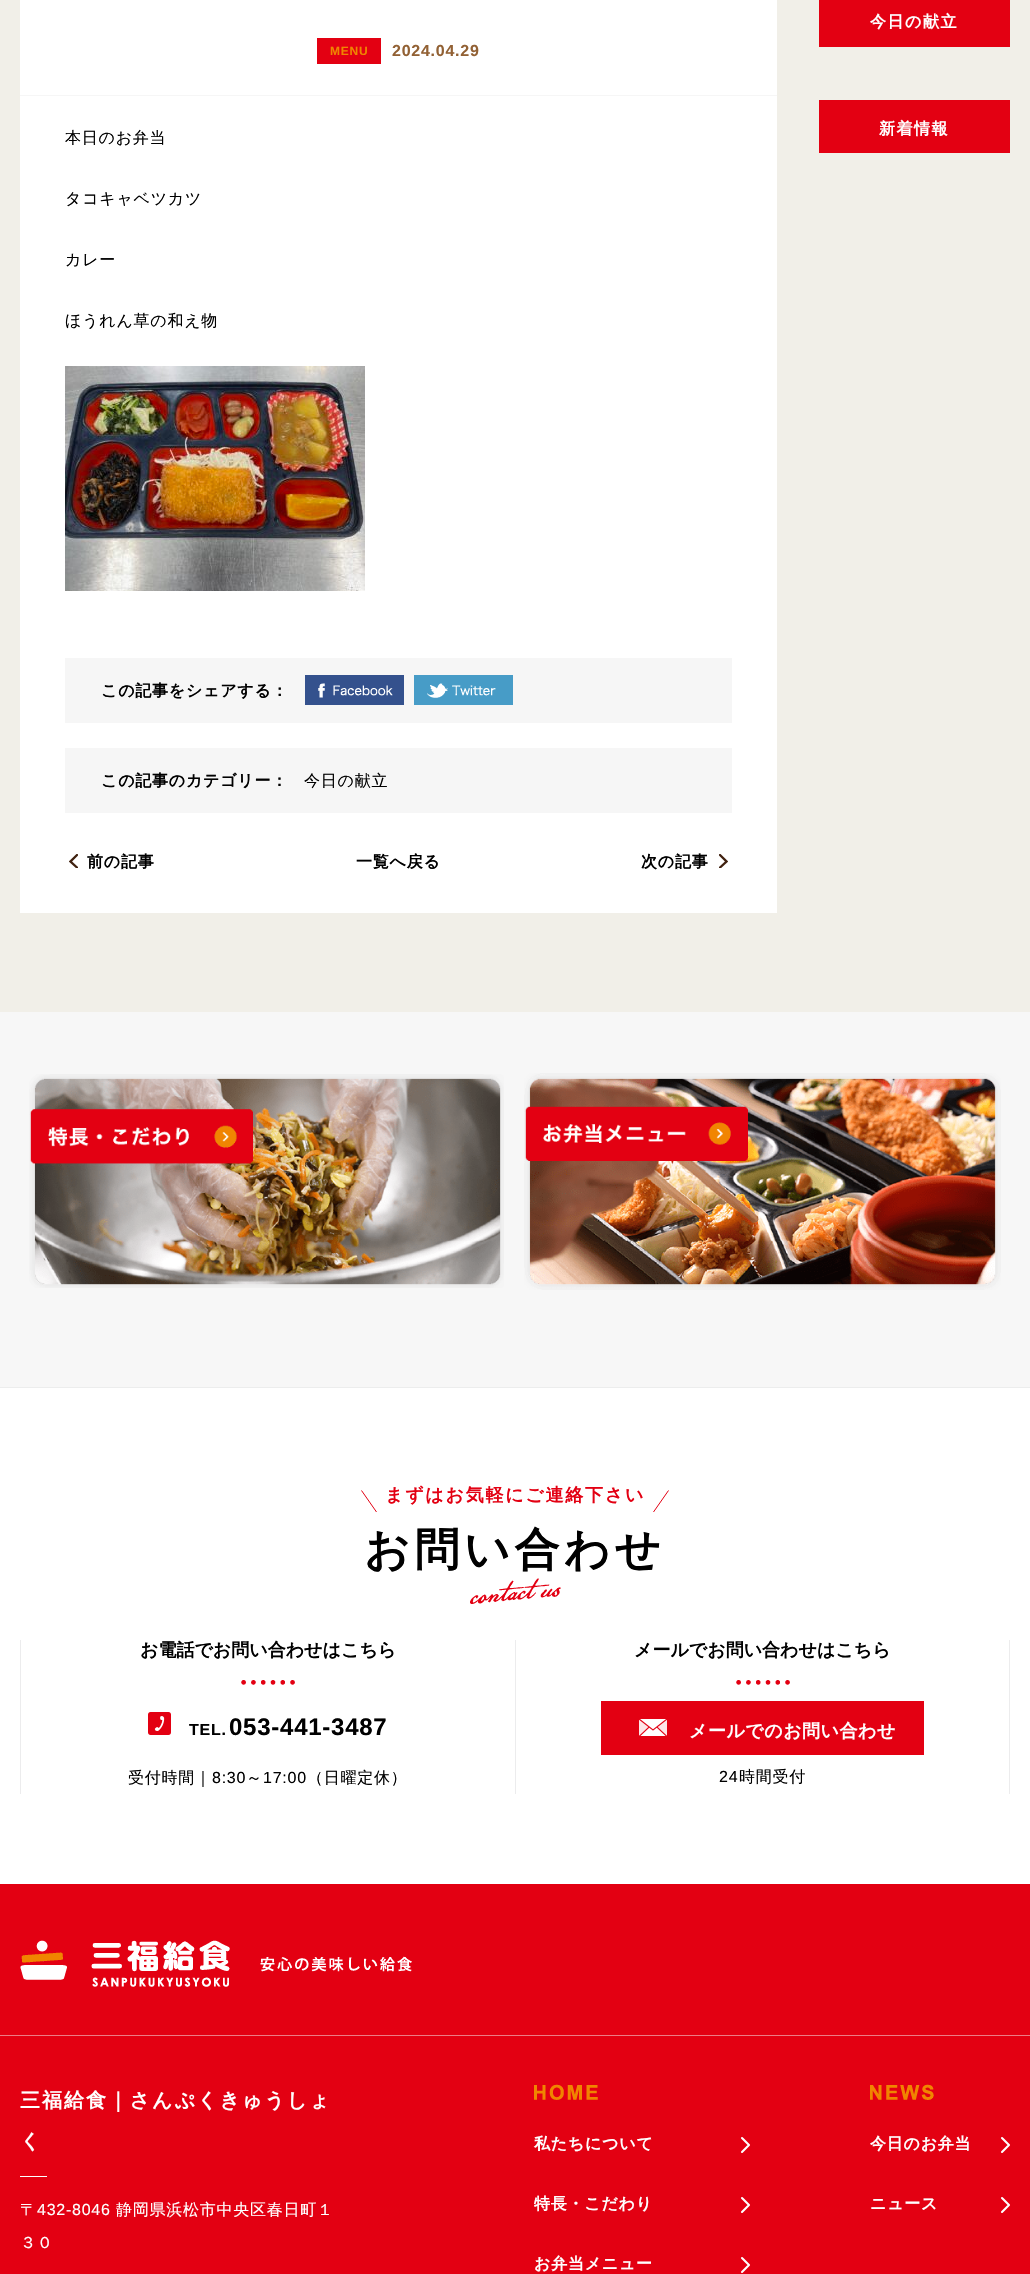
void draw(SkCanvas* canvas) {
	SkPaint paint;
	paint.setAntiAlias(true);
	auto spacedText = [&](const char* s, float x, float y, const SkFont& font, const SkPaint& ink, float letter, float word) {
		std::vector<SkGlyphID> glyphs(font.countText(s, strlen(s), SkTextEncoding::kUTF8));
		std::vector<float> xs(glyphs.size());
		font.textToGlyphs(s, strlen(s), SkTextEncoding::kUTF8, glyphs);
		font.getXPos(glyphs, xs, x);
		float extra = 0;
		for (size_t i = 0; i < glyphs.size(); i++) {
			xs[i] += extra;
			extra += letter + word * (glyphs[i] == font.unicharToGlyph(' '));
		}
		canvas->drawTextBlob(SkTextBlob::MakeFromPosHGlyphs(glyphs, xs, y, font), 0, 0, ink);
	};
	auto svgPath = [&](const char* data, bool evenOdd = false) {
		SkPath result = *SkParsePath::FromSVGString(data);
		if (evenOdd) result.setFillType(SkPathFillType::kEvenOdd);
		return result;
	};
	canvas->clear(0xffffffff);
	paint.setColor(0xfff1efe8);
	canvas->drawRect(SkRect::MakeXYWH(0, 0, 1030, 1012), paint);
	paint.setColor(0xffffffff);
	canvas->drawRect(SkRect::MakeXYWH(20, 0, 757, 913), paint);
	paint.setColor(0xfff6f6f6);
	canvas->drawRect(SkRect::MakeXYWH(20, 95, 757, 1), paint);
	paint.setColor(0xffe30012);
	canvas->drawRect(SkRect::MakeXYWH(317, 38, 64, 26), paint);
	SkFont f1(fontMgr->matchFamilyStyle("Liberation Sans", SkFontStyle::Bold()), 12);
	f1.setSubpixel(true);
	paint.setColor(0xfff08500);
	spacedText("MENU", 330, 55, f1, paint, 0.75, 0);
	SkFont f2(fontMgr->matchFamilyStyle("Liberation Sans", SkFontStyle::Bold()), 16);
	f2.setSubpixel(true);
	paint.setColor(0xff926134);
	spacedText("2024.04.29", 392, 56, f2, paint, 0.75, 0);
	SkFont f3(fontMgr->matchFamilyStyle("WenQuanYi Zen Hei", SkFontStyle(500, SkFontStyle::kNormal_Width, SkFontStyle::kUpright_Slant)), 16);
	f3.setSubpixel(true);
	paint.setColor(0xff000000);
	spacedText("本日のお弁当", 65, 143, f3, paint, 0.75, 0);
	spacedText("タコキャベツカツ", 65, 204, f3, paint, 0.75, 0);
	spacedText("カレー", 65, 265, f3, paint, 0.75, 0);
	spacedText("ほうれん草の和え物", 65, 326, f3, paint, 0.75, 0);
	canvas->drawImageRect(SkImages::DeferredFromEncodedData(SkData::MakeFromFileName("img1.png")), SkRect::MakeXYWH(65, 366, 300, 225), SkSamplingOptions());
	paint.setColor(0xfff6f6f6);
	canvas->drawRect(SkRect::MakeXYWH(65, 658, 667, 65), paint);
	SkFont f4(fontMgr->matchFamilyStyle("WenQuanYi Zen Hei", SkFontStyle::Bold()), 16);
	f4.setSubpixel(true);
	paint.setColor(0xff000000);
	spacedText("この記事をシェアする：", 101, 696, f4, paint, 0.75, 0);
	canvas->drawImageRect(SkImages::DeferredFromEncodedData(SkData::MakeFromFileName("img2.png")), SkRect::MakeXYWH(305, 675, 99, 30), SkSamplingOptions());
	canvas->drawImageRect(SkImages::DeferredFromEncodedData(SkData::MakeFromFileName("img3.png")), SkRect::MakeXYWH(414, 675, 99, 30), SkSamplingOptions());
	paint.setColor(0xfff6f6f6);
	canvas->drawRect(SkRect::MakeXYWH(65, 748, 667, 65), paint);
	paint.setColor(0xff000000);
	spacedText("この記事のカテゴリー：", 101, 786, f4, paint, 0.75, 0);
	spacedText("今日の献立", 304, 786, f3, paint, 0.75, 0);
	canvas->save();
	canvas->clipRect(SkRect::MakeXYWH(69, 854, 9, 14));
	paint.setStroke(true);
	paint.setStrokeWidth(2.3);
	paint.setStrokeCap(SkPaint::kRound_Cap);
	paint.setColor(0xff40210f);
	canvas->drawPath(svgPath("M77 867.5L70.5 861.5L77 855"), paint);
	canvas->restore();
	paint.setStroke(false);
	paint.setColor(0xff000000);
	spacedText("前の記事", 87, 867, f4, paint, 0.75, 0);
	spacedText("一覧へ戻る", 356, 867, f4, paint, 0.75, 0);
	spacedText("次の記事", 641, 867, f4, paint, 0.75, 0);
	canvas->save();
	canvas->clipRect(SkRect::MakeXYWH(719, 854, 9, 14));
	paint.setStroke(true);
	paint.setColor(0xff40210f);
	canvas->drawPath(svgPath("M720 855L726.5 861.5L720 867.5"), paint);
	canvas->restore();
	paint.setStroke(false);
	paint.setColor(0xffe30012);
	canvas->drawRect(SkRect::MakeXYWH(819, 0, 191, 47), paint);
	paint.setColor(0xffffffff);
	spacedText("今日の献立", 870, 27, f4, paint, 1.5, 0);
	paint.setColor(0xffe30012);
	canvas->drawRect(SkRect::MakeXYWH(819, 100, 191, 53), paint);
	paint.setColor(0xffffffff);
	spacedText("新着情報", 879, 134, f4, paint, 1.5, 0);
	paint.setColor(0xfff7f7f7);
	canvas->drawRect(SkRect::MakeXYWH(0, 1012, 1030, 375), paint);
	canvas->drawImageRect(SkImages::DeferredFromEncodedData(SkData::MakeFromFileName("img4.png")), SkRect::MakeXYWH(29, 1074, 475, 214), SkSamplingOptions());
	canvas->drawImageRect(SkImages::DeferredFromEncodedData(SkData::MakeFromFileName("img5.png")), SkRect::MakeXYWH(524, 1073, 477, 217), SkSamplingOptions());
	paint.setColor(0xffeceded);
	canvas->drawRect(SkRect::MakeXYWH(0, 1387, 1030, 1), paint);
	paint.setStroke(true);
	paint.setStrokeWidth(1);
	paint.setStrokeCap(SkPaint::kButt_Cap);
	paint.setColor(0xffe30012);
	canvas->drawPath(svgPath("M361.5 1490.5L376.5 1512"), paint);
	SkFont f5(fontMgr->matchFamilyStyle("WenQuanYi Zen Hei", SkFontStyle::Bold()), 18);
	f5.setSubpixel(true);
	paint.setStroke(false);
	spacedText("まずはお気軽にご連絡下さい", 385, 1501, f5, paint, 1.75, 0);
	paint.setStroke(true);
	canvas->drawPath(svgPath("M668.5 1490.5L653.5 1512"), paint);
	SkFont f6(fontMgr->matchFamilyStyle("WenQuanYi Zen Hei", SkFontStyle::Bold()), 45);
	f6.setSubpixel(true);
	paint.setStroke(false);
	paint.setColor(0xff000000);
	spacedText("お問い合わせ", 364, 1565, f6, paint, 4.5, 0);
	canvas->drawImageRect(SkImages::DeferredFromEncodedData(SkData::MakeFromFileName("img6.png")), SkRect::MakeXYWH(470, 1578, 91, 26), SkSamplingOptions());
	paint.setColor(0xffececed);
	canvas->drawRect(SkRect::MakeXYWH(20, 1640, 1, 154), paint);
	paint.setColor(0xff000000);
	canvas->drawString("お電話でお問い合わせはこちら", 140, 1656, f5, paint);
	canvas->drawImageRect(SkImages::DeferredFromEncodedData(SkData::MakeFromFileName("img7.png")), SkRect::MakeXYWH(241, 1680, 54, 5), SkSamplingOptions());
	canvas->drawImageRect(SkImages::DeferredFromEncodedData(SkData::MakeFromFileName("img8.png")), SkRect::MakeXYWH(148, 1712, 23, 23), SkSamplingOptions());
	spacedText("TEL.", 189, 1735, f2, paint, 0.75, 0);
	SkFont f7(fontMgr->matchFamilyStyle("Liberation Sans", SkFontStyle::Bold()), 24);
	f7.setSubpixel(true);
	spacedText("053-441-3487", 229, 1735, f7, paint, 0.75, 0);
	spacedText("受付時間｜", 128, 1783, f3, paint, 0.75, 0);
	SkFont f8(fontMgr->matchFamilyStyle("Liberation Sans", SkFontStyle::Normal()), 16);
	f8.setSubpixel(true);
	spacedText("8:30", 212, 1783, f8, paint, 0.75, 0);
	spacedText("～", 246, 1783, f3, paint, 0.75, 0);
	spacedText("17:00", 263, 1783, f8, paint, 0.75, 0);
	spacedText("（日曜定休）", 307, 1783, f3, paint, 0.75, 0);
	paint.setColor(0xffececed);
	canvas->drawRect(SkRect::MakeXYWH(1009, 1640, 1, 154), paint);
	canvas->drawRect(SkRect::MakeXYWH(515, 1640, 1, 154), paint);
	paint.setColor(0xff000000);
	canvas->drawString("メールでお問い合わせはこちら", 634, 1656, f5, paint);
	canvas->drawImageRect(SkImages::DeferredFromEncodedData(SkData::MakeFromFileName("img7.png")), SkRect::MakeXYWH(736, 1680, 54, 5), SkSamplingOptions());
	paint.setColor(0xffe30012);
	canvas->drawRect(SkRect::MakeXYWH(601, 1701, 323, 54), paint);
	canvas->drawImageRect(SkImages::DeferredFromEncodedData(SkData::MakeFromFileName("img9.png")), SkRect::MakeXYWH(639, 1719, 28, 17), SkSamplingOptions());
	paint.setColor(0xffffffff);
	spacedText("メールでのお問い合わせ", 689, 1737, f5, paint, 0.5, 0);
	paint.setColor(0xff000000);
	spacedText("24", 719, 1782, f8, paint, 0.75, 0);
	spacedText("時間受付", 739, 1782, f3, paint, 0.75, 0);
	paint.setColor(0xffe30012);
	canvas->drawRect(SkRect::MakeXYWH(0, 1884, 1030, 151), paint);
	paint.setColor(0xffed7c85);
	canvas->drawRect(SkRect::MakeXYWH(0, 2035, 1030, 1), paint);
	canvas->drawImageRect(SkImages::DeferredFromEncodedData(SkData::MakeFromFileName("img10.png")), SkRect::MakeXYWH(20, 1940, 392, 47), SkSamplingOptions());
	paint.setColor(0xffe30012);
	canvas->drawRect(SkRect::MakeXYWH(0, 2036, 1030, 238), paint);
	SkFont f9(fontMgr->matchFamilyStyle("WenQuanYi Zen Hei", SkFontStyle::Bold()), 20);
	f9.setSubpixel(true);
	paint.setColor(0xffffffff);
	spacedText("三福給食｜さんぷくきゅうしょ", 20, 2107, f9, paint, 2, 0);
	spacedText("く", 20, 2148, f9, paint, 2, 0);
	canvas->drawRect(SkRect::MakeXYWH(20, 2176, 27, 1), paint);
	spacedText("〒", 20, 2215, f3, paint, 0.75, 0);
	spacedText("432-8046", 37, 2215, f8, paint, 0.75, 0);
	spacedText("静岡県浜松市中央区春日町１", 116, 2215, f3, paint, 0.75, 0);
	spacedText("３０", 20, 2248, f3, paint, 0.75, 0);
	canvas->drawImageRect(SkImages::DeferredFromEncodedData(SkData::MakeFromFileName("img11.png")), SkRect::MakeXYWH(534, 2084, 64, 16), SkSamplingOptions());
	spacedText("私たちについて", 534, 2149, f4, paint, 0.75, 0);
	paint.setStroke(true);
	paint.setStrokeWidth(2.1);
	paint.setStrokeCap(SkPaint::kRound_Cap);
	paint.setStrokeJoin(SkPaint::kRound_Join);
	canvas->drawPath(svgPath("M742 2138L749 2145L742 2152"), paint);
	paint.setStroke(false);
	spacedText("特長・こだわり", 534, 2209, f4, paint, 0.75, 0);
	paint.setStroke(true);
	canvas->drawPath(svgPath("M742 2198L749 2205L742 2212"), paint);
	paint.setStroke(false);
	spacedText("お弁当メニュー", 534, 2269, f4, paint, 0.75, 0);
	paint.setStroke(true);
	canvas->drawPath(svgPath("M742 2258L749 2265L742 2272"), paint);
	canvas->drawImageRect(SkImages::DeferredFromEncodedData(SkData::MakeFromFileName("img12.png")), SkRect::MakeXYWH(870, 2084, 64, 16), SkSamplingOptions());
	paint.setStroke(false);
	spacedText("今日のお弁当", 870, 2149, f4, paint, 0.75, 0);
	paint.setStroke(true);
	canvas->drawPath(svgPath("M1002 2138L1009 2145L1002 2152"), paint);
	paint.setStroke(false);
	spacedText("ニュース", 870, 2209, f4, paint, 0.75, 0);
	paint.setStroke(true);
	canvas->drawPath(svgPath("M1002 2198L1009 2205L1002 2212"), paint);
}
